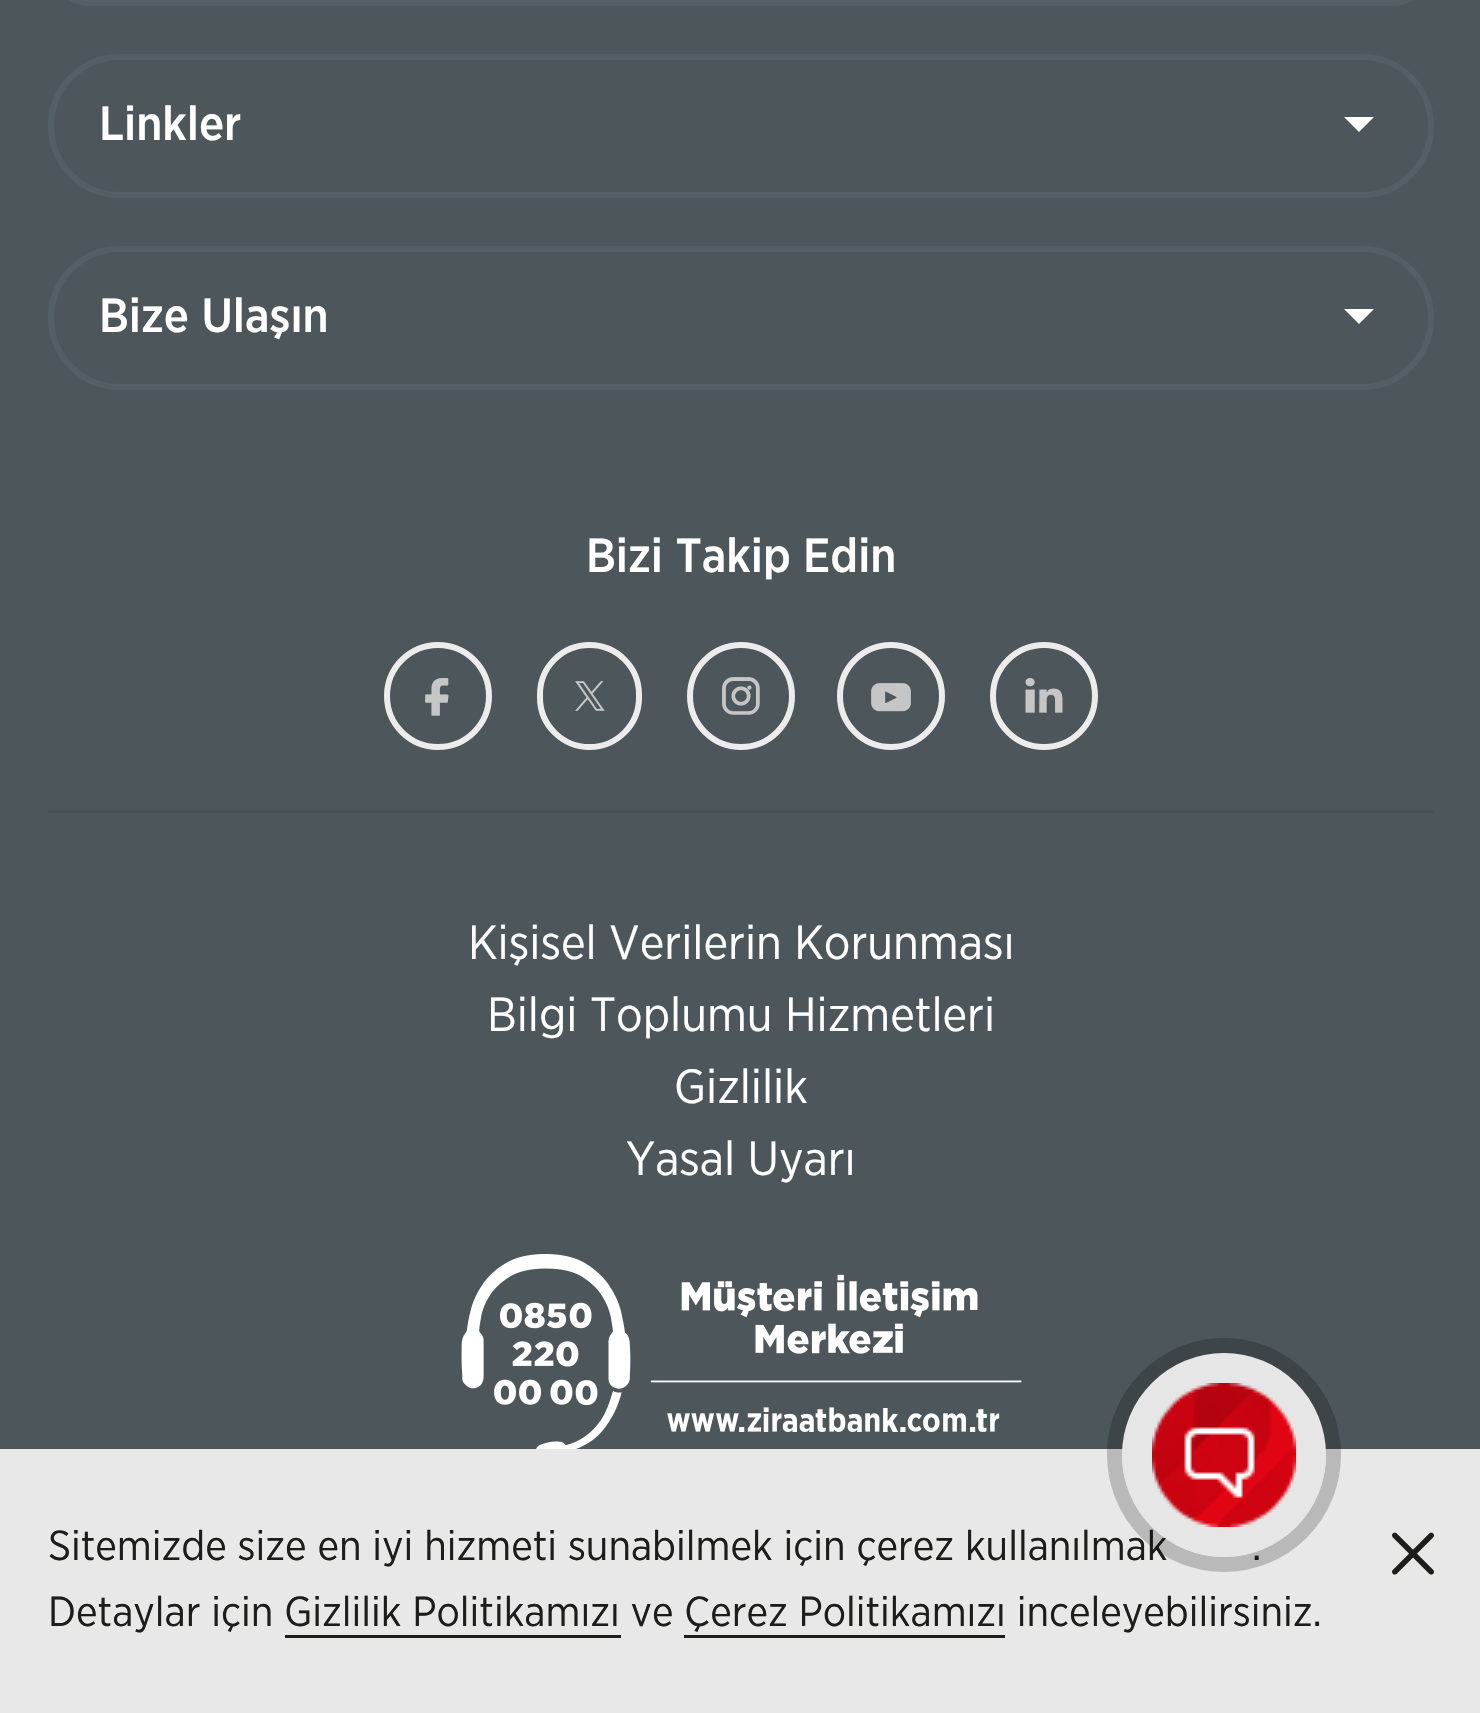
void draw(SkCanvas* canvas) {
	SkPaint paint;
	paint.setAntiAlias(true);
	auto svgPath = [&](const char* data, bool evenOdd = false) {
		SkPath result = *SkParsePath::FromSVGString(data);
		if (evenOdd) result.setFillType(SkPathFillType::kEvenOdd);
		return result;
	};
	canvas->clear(0xff4c565b);
	paint.setColor(0xff475054);
	canvas->drawRect(SkRect::MakeXYWH(48, 810, 1386, 3), paint);
	paint.setStroke(true);
	paint.setStrokeWidth(6);
	paint.setColor(0xff545f65);
	canvas->drawRoundRect(SkRect::MakeXYWH(51, -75, 1380, 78), 69, 69, paint);
	canvas->drawRoundRect(SkRect::MakeXYWH(51, 57, 1380, 138), 69, 69, paint);
	SkFont f1(fontMgr->matchFamilyStyle("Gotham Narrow", SkFontStyle(500, SkFontStyle::kNormal_Width, SkFontStyle::kUpright_Slant)), 48);
	f1.setSubpixel(true);
	paint.setStroke(false);
	paint.setColor(0xffffffff);
	canvas->drawString("Linkler", 99, 140, f1, paint);
	canvas->drawPath(svgPath("M1344 117H1374L1359 132Z"), paint);
	paint.setStroke(true);
	paint.setColor(0xff545f65);
	canvas->drawRoundRect(SkRect::MakeXYWH(51, 249, 1380, 138), 69, 69, paint);
	paint.setStroke(false);
	paint.setColor(0xffffffff);
	canvas->drawString("Bize Ulaşın", 99, 332, f1, paint);
	canvas->drawPath(svgPath("M1344 309H1374L1359 324Z"), paint);
	canvas->drawString("Bizi Takip Edin", 586, 572, f1, paint);
	paint.setStroke(true);
	paint.setColor(0xffececec);
	canvas->drawCircle(438, 696, 51, paint);
	canvas->drawImageRect(SkImages::DeferredFromEncodedData(SkData::MakeFromFileName("img1.png")), SkRect::MakeXYWH(425, 678, 24, 38), SkSamplingOptions());
	canvas->drawRoundRect(SkRect::MakeXYWH(540, 645, 99, 102), 49.5, 49.5, paint);
	canvas->drawImageRect(SkImages::DeferredFromEncodedData(SkData::MakeFromFileName("img2.png")), SkRect::MakeXYWH(575, 681, 30, 30), SkSamplingOptions());
	canvas->drawCircle(741, 696, 51, paint);
	canvas->drawImageRect(SkImages::DeferredFromEncodedData(SkData::MakeFromFileName("img3.png")), SkRect::MakeXYWH(722, 677, 38, 38), SkSamplingOptions());
	canvas->drawCircle(891, 696, 51, paint);
	canvas->drawImageRect(SkImages::DeferredFromEncodedData(SkData::MakeFromFileName("img4.png")), SkRect::MakeXYWH(871, 683, 40, 29), SkSamplingOptions());
	canvas->drawCircle(1044, 696, 51, paint);
	canvas->drawImageRect(SkImages::DeferredFromEncodedData(SkData::MakeFromFileName("img5.png")), SkRect::MakeXYWH(1025, 678, 38, 35), SkSamplingOptions());
	SkFont f2(fontMgr->matchFamilyStyle("Gotham Narrow", SkFontStyle::Normal()), 48);
	f2.setSubpixel(true);
	paint.setStroke(false);
	paint.setColor(0xffffffff);
	canvas->drawString("Kişisel Verilerin Korunması", 468, 959, f2, paint);
	canvas->drawString("Bilgi Toplumu Hizmetleri", 487, 1031, f2, paint);
	canvas->drawString("Gizlilik", 674, 1103, f2, paint);
	canvas->drawString("Yasal Uyarı", 626, 1175, f2, paint);
	canvas->drawImageRect(SkImages::DeferredFromEncodedData(SkData::MakeFromFileName("img6.png")), SkRect::MakeXYWH(461, 1254, 561, 195), SkSamplingOptions());
	paint.setColor(0xffe8e8e8);
	canvas->drawRect(SkRect::MakeXYWH(0, 1449, 1480, 264), paint);
	SkFont f3(fontMgr->matchFamilyStyle("Gotham Narrow", SkFontStyle::Normal()), 42);
	f3.setSubpixel(true);
	paint.setColor(0xff1d1d1b);
	canvas->drawString("Sitemizde size en iyi hizmeti sunabilmek için çerez kullanılmak", 48, 1560, f3, paint);
	canvas->drawString(".", 1252, 1560, f3, paint);
	paint.setStroke(true);
	paint.setStrokeWidth(15);
	paint.setColor(0x33000000);
	canvas->drawCircle(1224, 1455, 109.5, paint);
	paint.setStroke(false);
	paint.setColor(0xffe6e6e6);
	canvas->drawCircle(1224, 1455, 102, paint);
	canvas->drawImageRect(SkImages::DeferredFromEncodedData(SkData::MakeFromFileName("img7.png")), SkRect::MakeXYWH(1152, 1383, 144, 144), SkSamplingOptions());
	paint.setColor(0xff1d1d1b);
	canvas->drawString("Detaylar için Gizlilik Politikamızı ve Çerez Politikamızı inceleyebilirsiniz.", 48, 1626, f3, paint);
	canvas->drawRect(SkRect::MakeXYWH(285, 1635, 336, 3), paint);
	canvas->drawRect(SkRect::MakeXYWH(684, 1635, 321, 3), paint);
	canvas->drawImageRect(SkImages::DeferredFromEncodedData(SkData::MakeFromFileName("img8.png")), SkRect::MakeXYWH(1392, 1532, 42, 43), SkSamplingOptions());
}
